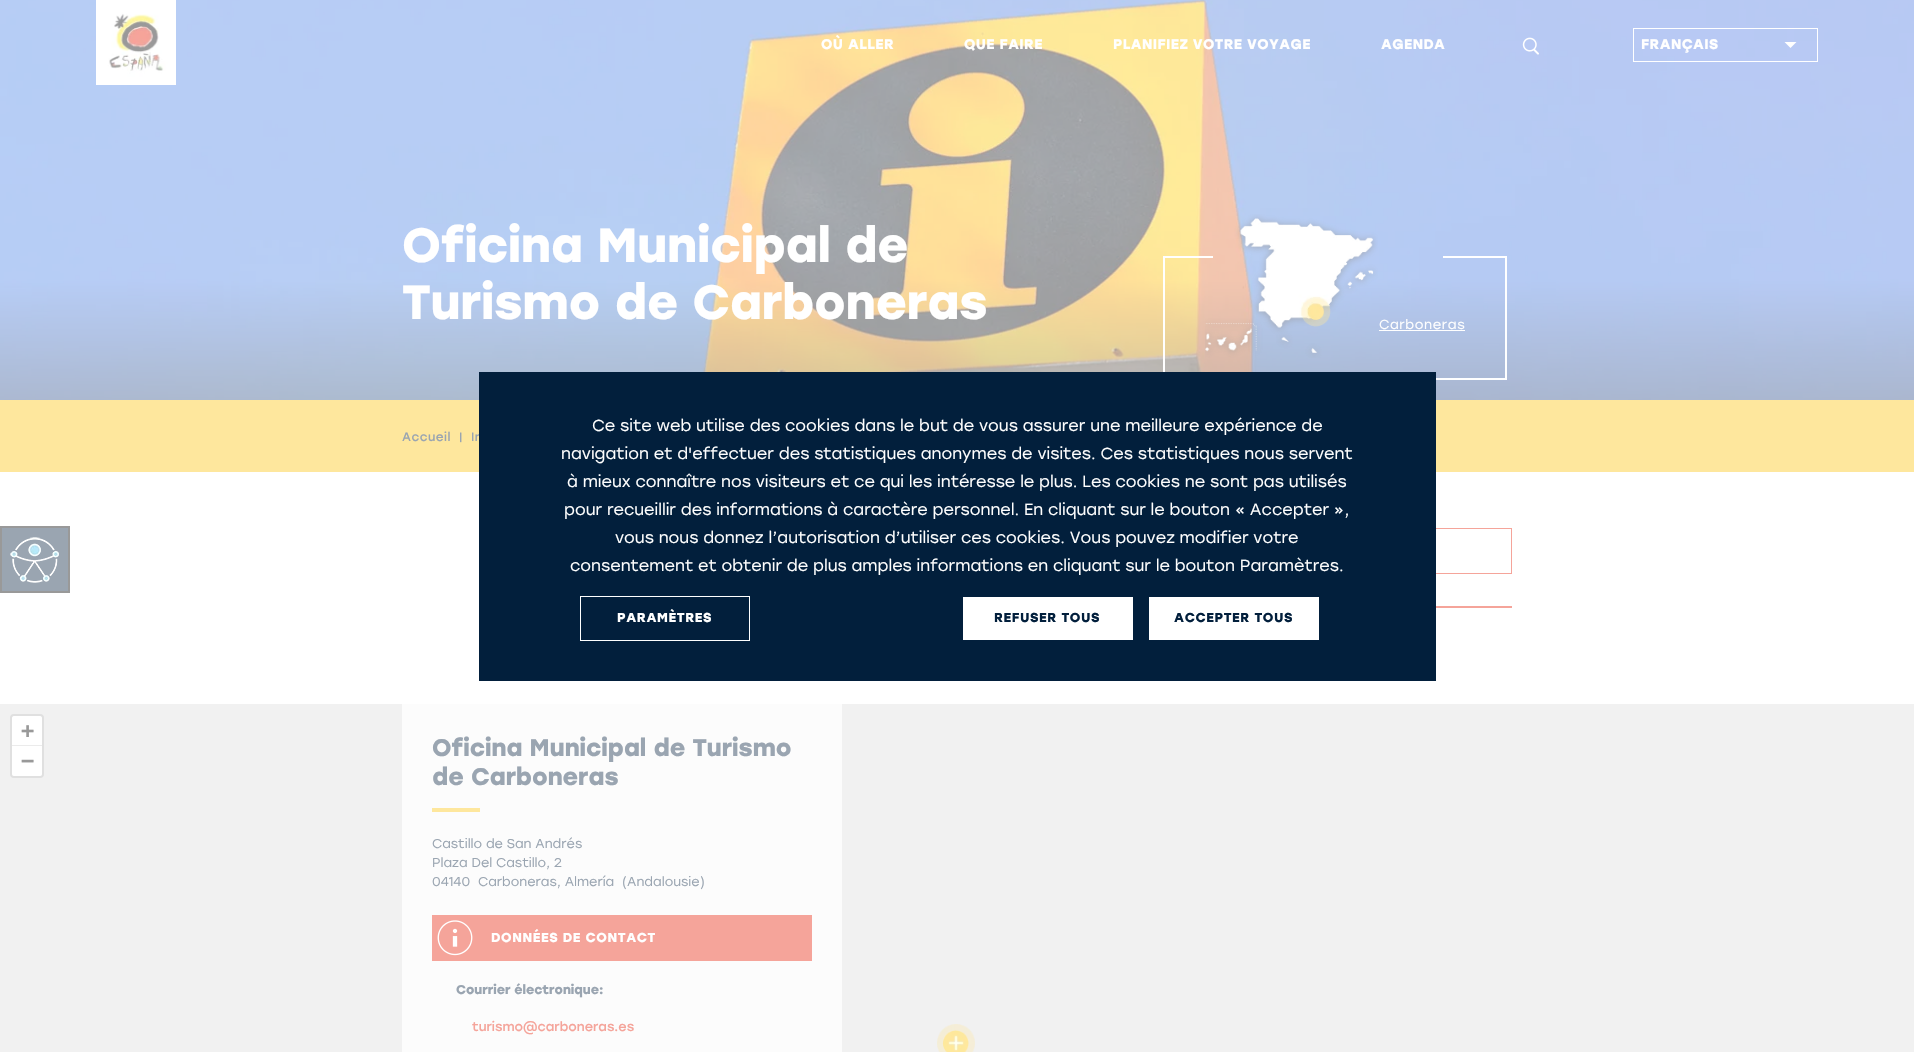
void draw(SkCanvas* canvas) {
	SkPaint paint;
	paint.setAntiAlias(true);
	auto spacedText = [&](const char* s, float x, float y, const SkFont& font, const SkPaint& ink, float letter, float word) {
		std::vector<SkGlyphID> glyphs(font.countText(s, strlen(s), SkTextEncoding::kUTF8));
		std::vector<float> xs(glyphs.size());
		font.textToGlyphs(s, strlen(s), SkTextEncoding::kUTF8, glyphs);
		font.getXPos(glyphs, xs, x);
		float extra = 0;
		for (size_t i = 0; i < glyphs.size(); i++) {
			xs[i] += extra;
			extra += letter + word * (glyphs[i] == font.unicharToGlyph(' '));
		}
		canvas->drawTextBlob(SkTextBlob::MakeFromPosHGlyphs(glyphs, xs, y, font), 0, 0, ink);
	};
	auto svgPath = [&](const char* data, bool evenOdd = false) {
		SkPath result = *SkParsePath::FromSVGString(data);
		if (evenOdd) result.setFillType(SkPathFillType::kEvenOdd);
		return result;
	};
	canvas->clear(0xffffffff);
	canvas->drawImageRect(SkImages::DeferredFromEncodedData(SkData::MakeFromFileName("img3.png")), SkRect::MakeXYWH(0, 0, 1914, 400), SkSamplingOptions());
	canvas->drawImageRect(SkImages::DeferredFromEncodedData(SkData::MakeFromFileName("img1.png")), SkRect::MakeXYWH(96, 0, 80, 85), SkSamplingOptions());
	SkFont f1(fontMgr->matchFamilyStyle("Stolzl", SkFontStyle::Bold()), 14);
	f1.setSubpixel(true);
	paint.setColor(0xffffffff);
	spacedText("OÙ ALLER", 821, 49, f1, paint, 0.4, 0);
	spacedText("QUE FAIRE", 964, 49, f1, paint, 0.4, 0);
	spacedText("PLANIFIEZ VOTRE VOYAGE", 1113, 49, f1, paint, 0.4, 0);
	spacedText("AGENDA", 1381, 49, f1, paint, 0.4, 0);
	paint.setStroke(true);
	paint.setStrokeWidth(1);
	canvas->drawRect(SkRect::MakeXYWH(1633.5, 28.5, 184, 33), paint);
	paint.setStroke(false);
	spacedText("FRANÇAIS", 1641, 49, f1, paint, 0.4, 0);
	canvas->drawPath(svgPath("M1784.5 42L1790.5 48L1796.5 42Z"), paint);
	canvas->drawImageRect(SkImages::DeferredFromEncodedData(SkData::MakeFromFileName("img2.png")), SkRect::MakeXYWH(1522, 37, 17, 18), SkSamplingOptions());
	SkFont f2(fontMgr->matchFamilyStyle("Stolzl", SkFontStyle::Bold()), 48);
	f2.setSubpixel(true);
	canvas->drawString("Oficina Municipal de", 402, 262, f2, paint);
	canvas->drawString("Turismo de Carboneras", 402, 319, f2, paint);
	canvas->drawRect(SkRect::MakeXYWH(1505, 256, 2, 124), paint);
	canvas->drawRect(SkRect::MakeXYWH(1436, 378, 71, 2), paint);
	canvas->drawRect(SkRect::MakeXYWH(1163, 256, 2, 124), paint);
	canvas->drawRect(SkRect::MakeXYWH(1163, 256, 50, 2), paint);
	canvas->drawImageRect(SkImages::DeferredFromEncodedData(SkData::MakeFromFileName("img4.png")), SkRect::MakeXYWH(1205, 214, 173, 144), SkSamplingOptions());
	canvas->drawRect(SkRect::MakeXYWH(1443, 256, 64, 2), paint);
	SkFont f3(fontMgr->matchFamilyStyle("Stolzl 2", SkFontStyle::Normal()), 13);
	f3.setSubpixel(true);
	spacedText("Carboneras", 1379, 329, f3, paint, 0.6, 0);
	canvas->drawRect(SkRect::MakeXYWH(1379, 330, 86, 1), paint);
	paint.setColor(0xfffee79d);
	canvas->drawRect(SkRect::MakeXYWH(0, 400, 1914, 72), paint);
	SkFont f4(fontMgr->matchFamilyStyle("Stolzl", SkFontStyle::Normal()), 12);
	f4.setSubpixel(true);
	paint.setColor(0xff9aa5b1);
	spacedText("Accueil", 402, 441, f4, paint, 0.5, 0);
	canvas->drawString("|", 459, 441, f4, paint);
	spacedText("In", 471, 441, f4, paint, 0.5, 0);
	paint.setStroke(true);
	paint.setColor(0xfff5a49a);
	canvas->drawRect(SkRect::MakeXYWH(1257.5, 528.5, 254, 45), paint);
	paint.setStroke(false);
	canvas->drawRect(SkRect::MakeXYWH(1436, 606, 76, 2), paint);
	paint.setColor(0xfff1f1f1);
	canvas->drawRect(SkRect::MakeXYWH(0, 704, 1914, 348), paint);
	paint.setStroke(true);
	paint.setStrokeWidth(2);
	paint.setColor(0xffe0e0e0);
	canvas->drawRoundRect(SkRect::MakeXYWH(11, 715, 32, 62), 3, 3, paint);
	paint.setStroke(false);
	paint.setColor(0xffffffff);
	canvas->drawPath(svgPath("M14 716H40C41 716 42 717 42 718V746H12V718C12 717 13 716 14 716Z"), paint);
	paint.setColor(0xffebebeb);
	canvas->drawRect(SkRect::MakeXYWH(12, 745, 30, 1), paint);
	SkFont f5(fontMgr->matchFamilyStyle("DejaVu Sans Mono", SkFontStyle::Bold()), 22);
	f5.setSubpixel(true);
	paint.setColor(0xff999999);
	canvas->drawString("+", 21, 738, f5, paint);
	paint.setColor(0xffffffff);
	canvas->drawPath(svgPath("M12 746H42V774C42 775 41 776 40 776H14C13 776 12 775 12 774Z"), paint);
	paint.setColor(0xff999999);
	canvas->drawString("−", 21, 768, f5, paint);
	canvas->drawImageRect(SkImages::DeferredFromEncodedData(SkData::MakeFromFileName("img5.png")), SkRect::MakeXYWH(937, 1024, 38, 28), SkSamplingOptions());
	paint.setColor(0xfffcfcfc);
	canvas->drawRect(SkRect::MakeXYWH(402, 704, 440, 348), paint);
	SkFont f6(fontMgr->matchFamilyStyle("Stolzl", SkFontStyle::Bold()), 24);
	f6.setSubpixel(true);
	paint.setColor(0xff9aa5b1);
	canvas->drawString("Oficina Municipal de Turismo", 432, 756, f6, paint);
	canvas->drawString("de Carboneras", 432, 785, f6, paint);
	paint.setColor(0xfffee79d);
	canvas->drawRect(SkRect::MakeXYWH(432, 808, 48, 4), paint);
	SkFont f7(fontMgr->matchFamilyStyle("Stolzl 2", SkFontStyle::Normal()), 12.75);
	f7.setSubpixel(true);
	paint.setColor(0xff9aa5b1);
	canvas->drawString("Castillo de San Andrés", 432, 848, f7, paint);
	canvas->drawString("Plaza Del Castillo, 2", 432, 867, f7, paint);
	canvas->drawString("04140", 432, 886, f7, paint);
	canvas->drawString("Carboneras, Almería", 478, 886, f7, paint);
	canvas->drawString("(Andalousie)", 622, 886, f7, paint);
	paint.setStroke(true);
	paint.setStrokeWidth(1);
	paint.setColor(0xfff5a49a);
	canvas->drawRect(SkRect::MakeXYWH(432.5, 915.5, 379, 45), paint);
	paint.setStroke(false);
	canvas->drawRect(SkRect::MakeXYWH(433, 916, 378, 44), paint);
	canvas->drawImageRect(SkImages::DeferredFromEncodedData(SkData::MakeFromFileName("img6.png")), SkRect::MakeXYWH(437, 920, 36, 36), SkSamplingOptions());
	SkFont f8(fontMgr->matchFamilyStyle("Stolzl", SkFontStyle::Bold()), 13);
	f8.setSubpixel(true);
	paint.setColor(0xffffffff);
	spacedText("DONNÉES DE CONTACT", 491, 942, f8, paint, 0.6, 0);
	SkFont f9(fontMgr->matchFamilyStyle("Stolzl", SkFontStyle::Bold()), 12.75);
	f9.setSubpixel(true);
	paint.setColor(0xff9aa5b1);
	canvas->drawString("Courrier électronique:", 456, 994, f9, paint);
	SkFont f10(fontMgr->matchFamilyStyle("Stolzl", SkFontStyle::Normal()), 12.75);
	f10.setSubpixel(true);
	paint.setColor(0xfff5a49a);
	canvas->drawString("turismo@carboneras.es", 472, 1031, f10, paint);
	paint.setColor(0xff9aa5b1);
	canvas->drawRect(SkRect::MakeXYWH(1, 527, 68, 65), paint);
	paint.setStroke(true);
	paint.setStrokeWidth(2);
	paint.setColor(0xff999999);
	canvas->drawRect(SkRect::MakeXYWH(1, 527, 68, 65), paint);
	canvas->drawImageRect(SkImages::DeferredFromEncodedData(SkData::MakeFromFileName("img7.png")), SkRect::MakeXYWH(10, 537, 49, 46), SkSamplingOptions());
	paint.setStroke(false);
	paint.setColor(0xff021f3c);
	canvas->drawRect(SkRect::MakeXYWH(479, 372, 957, 309), paint);
	SkFont f11(fontMgr->matchFamilyStyle("Stolzl 2", SkFontStyle::Normal()), 16);
	f11.setSubpixel(true);
	paint.setColor(0xffffffff);
	canvas->drawString("Ce site web utilise des cookies dans le but de vous assurer une meilleure expérience de", 592, 431, f11, paint);
	canvas->drawString("navigation et d'effectuer des statistiques anonymes de visites. Ces statistiques nous servent", 561, 459, f11, paint);
	canvas->drawString("à mieux connaître nos visiteurs et ce qui les intéresse le plus. Les cookies ne sont pas utilisés", 567, 487, f11, paint);
	canvas->drawString("pour recueillir des informations à caractère personnel. En cliquant sur le bouton « Accepter »,", 564, 515, f11, paint);
	canvas->drawString("vous nous donnez l’autorisation d’utiliser ces cookies. Vous pouvez modifier votre", 615, 543, f11, paint);
	canvas->drawString("consentement et obtenir de plus amples informations en cliquant sur le bouton Paramètres.", 570, 571, f11, paint);
	paint.setStroke(true);
	paint.setStrokeWidth(1);
	canvas->drawRect(SkRect::MakeXYWH(580.5, 596.5, 169, 44), paint);
	paint.setStroke(false);
	spacedText("PARAMÈTRES", 617, 622, f8, paint, 0.6, 0);
	canvas->drawRect(SkRect::MakeXYWH(963, 597, 170, 43), paint);
	paint.setColor(0xff021f3c);
	spacedText("REFUSER TOUS", 994, 622, f8, paint, 0.6, 0);
	paint.setColor(0xffffffff);
	canvas->drawRect(SkRect::MakeXYWH(1149, 597, 170, 43), paint);
	paint.setColor(0xff021f3c);
	spacedText("ACCEPTER TOUS", 1174, 622, f8, paint, 0.6, 0);
}
